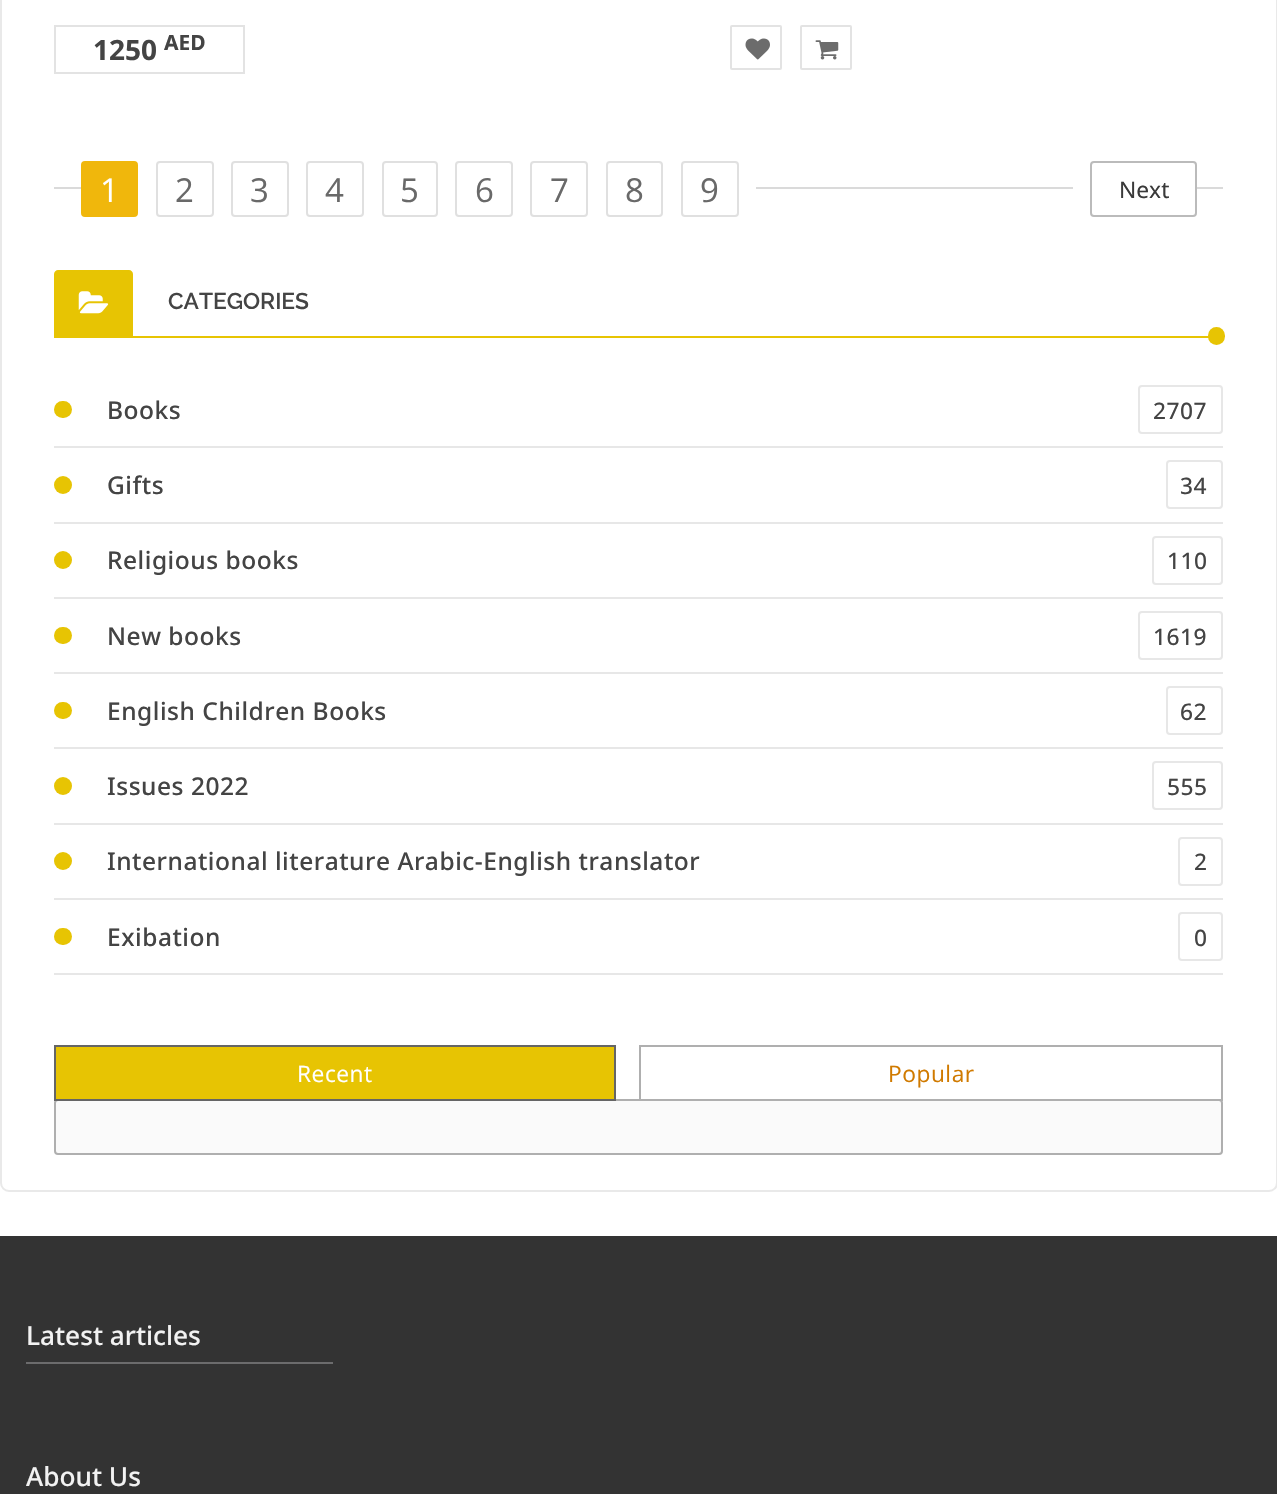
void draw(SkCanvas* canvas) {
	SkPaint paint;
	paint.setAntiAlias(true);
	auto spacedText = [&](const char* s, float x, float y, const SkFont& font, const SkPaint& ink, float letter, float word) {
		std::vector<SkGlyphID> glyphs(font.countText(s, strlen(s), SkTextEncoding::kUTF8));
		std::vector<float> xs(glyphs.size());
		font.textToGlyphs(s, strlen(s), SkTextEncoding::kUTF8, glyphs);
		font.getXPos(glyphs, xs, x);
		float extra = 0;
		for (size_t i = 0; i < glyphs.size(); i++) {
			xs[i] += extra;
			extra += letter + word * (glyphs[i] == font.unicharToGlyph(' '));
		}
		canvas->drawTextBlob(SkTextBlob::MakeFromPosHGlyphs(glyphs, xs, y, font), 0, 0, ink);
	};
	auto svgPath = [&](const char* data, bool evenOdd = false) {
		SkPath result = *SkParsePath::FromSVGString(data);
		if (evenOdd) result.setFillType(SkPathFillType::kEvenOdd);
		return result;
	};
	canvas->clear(0xffffffff);
	paint.setStroke(true);
	paint.setStrokeWidth(2);
	paint.setColor(0xffe9e9e9);
	canvas->drawRoundRect(SkRect::MakeXYWH(1, -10, 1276, 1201), 8, 8, paint);
	paint.setColor(0xffe3e3e3);
	canvas->drawRect(SkRect::MakeXYWH(55, 26, 189, 47), paint);
	SkFont f1(fontMgr->matchFamilyStyle("Noto Sans", SkFontStyle::Bold()), 28);
	f1.setSubpixel(true);
	paint.setStroke(false);
	paint.setColor(0xff444444);
	canvas->drawString("1250", 93, 60, f1, paint);
	SkFont f2(fontMgr->matchFamilyStyle("Noto Sans", SkFontStyle::Bold()), 21);
	f2.setSubpixel(true);
	canvas->drawString("AED", 164, 50, f2, paint);
	paint.setStroke(true);
	paint.setColor(0xffe3e3e3);
	canvas->drawRoundRect(SkRect::MakeXYWH(731, 26, 50, 43), 1, 1, paint);
	canvas->drawImageRect(SkImages::DeferredFromEncodedData(SkData::MakeFromFileName("img1.png")), SkRect::MakeXYWH(745, 38, 25, 22), SkSamplingOptions());
	canvas->drawRoundRect(SkRect::MakeXYWH(801, 26, 50, 43), 1, 1, paint);
	canvas->drawImageRect(SkImages::DeferredFromEncodedData(SkData::MakeFromFileName("img2.png")), SkRect::MakeXYWH(815, 40, 24, 20), SkSamplingOptions());
	paint.setStroke(false);
	paint.setColor(0xffdadada);
	canvas->drawRect(SkRect::MakeXYWH(54, 187, 1169, 2), paint);
	paint.setColor(0xffffffff);
	canvas->drawRect(SkRect::MakeXYWH(81, 187, 675, 2), paint);
	paint.setColor(0xfff0b70c);
	canvas->drawRoundRect(SkRect::MakeXYWH(82, 162, 55, 54), 3, 3, paint);
	paint.setStroke(true);
	canvas->drawRoundRect(SkRect::MakeXYWH(82, 162, 55, 54), 3, 3, paint);
	SkFont f3(fontMgr->matchFamilyStyle("Open Sans", SkFontStyle::Normal()), 33);
	f3.setSubpixel(true);
	paint.setStroke(false);
	paint.setColor(0xffffffff);
	canvas->drawString("1", 100, 202, f3, paint);
	paint.setStroke(true);
	paint.setColor(0xffe0e0e0);
	canvas->drawRoundRect(SkRect::MakeXYWH(157, 162, 56, 54), 3, 3, paint);
	paint.setStroke(false);
	paint.setColor(0xff696969);
	canvas->drawString("2", 175, 202, f3, paint);
	paint.setStroke(true);
	paint.setColor(0xffe0e0e0);
	canvas->drawRoundRect(SkRect::MakeXYWH(232, 162, 56, 54), 3, 3, paint);
	paint.setStroke(false);
	paint.setColor(0xff696969);
	canvas->drawString("3", 250, 202, f3, paint);
	paint.setStroke(true);
	paint.setColor(0xffe0e0e0);
	canvas->drawRoundRect(SkRect::MakeXYWH(307, 162, 56, 54), 3, 3, paint);
	paint.setStroke(false);
	paint.setColor(0xff696969);
	canvas->drawString("4", 325, 202, f3, paint);
	paint.setStroke(true);
	paint.setColor(0xffe0e0e0);
	canvas->drawRoundRect(SkRect::MakeXYWH(383, 162, 54, 54), 3, 3, paint);
	paint.setStroke(false);
	paint.setColor(0xff696969);
	canvas->drawString("5", 400, 202, f3, paint);
	paint.setStroke(true);
	paint.setColor(0xffe0e0e0);
	canvas->drawRoundRect(SkRect::MakeXYWH(456, 162, 56, 54), 3, 3, paint);
	paint.setStroke(false);
	paint.setColor(0xff696969);
	canvas->drawString("6", 475, 202, f3, paint);
	paint.setStroke(true);
	paint.setColor(0xffe0e0e0);
	canvas->drawRoundRect(SkRect::MakeXYWH(531, 162, 56, 54), 3, 3, paint);
	paint.setStroke(false);
	paint.setColor(0xff696969);
	canvas->drawString("7", 550, 202, f3, paint);
	paint.setStroke(true);
	paint.setColor(0xffe0e0e0);
	canvas->drawRoundRect(SkRect::MakeXYWH(607, 162, 55, 54), 3, 3, paint);
	paint.setStroke(false);
	paint.setColor(0xff696969);
	canvas->drawString("8", 625, 202, f3, paint);
	paint.setStroke(true);
	paint.setColor(0xffe0e0e0);
	canvas->drawRoundRect(SkRect::MakeXYWH(682, 162, 56, 54), 3, 3, paint);
	paint.setStroke(false);
	paint.setColor(0xff696969);
	canvas->drawString("9", 700, 202, f3, paint);
	paint.setColor(0xffffffff);
	canvas->drawRect(SkRect::MakeXYWH(1073, 187, 124, 2), paint);
	paint.setStroke(true);
	paint.setColor(0xffbbbbbb);
	canvas->drawRoundRect(SkRect::MakeXYWH(1091, 162, 105, 54), 3, 3, paint);
	SkFont f4(fontMgr->matchFamilyStyle("Noto Sans", SkFontStyle::Normal()), 22.75);
	f4.setSubpixel(true);
	paint.setStroke(false);
	paint.setColor(0xff3a3a3a);
	canvas->drawString("Next", 1119, 198, f4, paint);
	paint.setColor(0xffe7c403);
	canvas->drawRect(SkRect::MakeXYWH(54, 336, 1155, 2), paint);
	canvas->drawPath(svgPath("M58 270H129C131 270 133 272 133 274V336H54V274C54 272 56 270 58 270Z"), paint);
	canvas->drawImageRect(SkImages::DeferredFromEncodedData(SkData::MakeFromFileName("img3.png")), SkRect::MakeXYWH(78, 291, 31, 23), SkSamplingOptions());
	SkFont f5(fontMgr->matchFamilyStyle("Raleway", SkFontStyle(600, SkFontStyle::kNormal_Width, SkFontStyle::kUpright_Slant)), 22.75);
	f5.setSubpixel(true);
	paint.setColor(0xff444444);
	canvas->drawString("CATEGORIES", 168, 309, f5, paint);
	paint.setColor(0xffe7c403);
	canvas->drawRoundRect(SkRect::MakeXYWH(1208, 327, 17, 18), 8.5, 8.5, paint);
	paint.setColor(0xffe7e7e7);
	canvas->drawRect(SkRect::MakeXYWH(54, 446, 1169, 2), paint);
	paint.setColor(0xffe7c403);
	canvas->drawRoundRect(SkRect::MakeXYWH(54, 401, 18, 17), 8.5, 8.5, paint);
	SkFont f6(fontMgr->matchFamilyStyle("Noto Sans", SkFontStyle(500, SkFontStyle::kNormal_Width, SkFontStyle::kUpright_Slant)), 24.5);
	f6.setSubpixel(true);
	paint.setColor(0xff444444);
	spacedText("Books", 107, 419, f6, paint, 0.53, 0);
	paint.setStroke(true);
	paint.setColor(0xffe7e7e7);
	canvas->drawRoundRect(SkRect::MakeXYWH(1139, 386, 83, 47), 3, 3, paint);
	SkFont f7(fontMgr->matchFamilyStyle("Open Sans", SkFontStyle(500, SkFontStyle::kNormal_Width, SkFontStyle::kUpright_Slant)), 22.75);
	f7.setSubpixel(true);
	paint.setStroke(false);
	paint.setColor(0xff444444);
	spacedText("2707", 1153, 419, f7, paint, 0.53, 0);
	paint.setColor(0xffe7e7e7);
	canvas->drawRect(SkRect::MakeXYWH(54, 522, 1169, 2), paint);
	paint.setColor(0xffe7c403);
	canvas->drawCircle(63, 485, 9, paint);
	paint.setColor(0xff444444);
	spacedText("Gifts", 107, 494, f6, paint, 0.53, 0);
	paint.setStroke(true);
	paint.setColor(0xffe7e7e7);
	canvas->drawRoundRect(SkRect::MakeXYWH(1167, 461, 55, 47), 3, 3, paint);
	paint.setStroke(false);
	paint.setColor(0xff444444);
	spacedText("34", 1180, 494, f7, paint, 0.53, 0);
	paint.setColor(0xffe7e7e7);
	canvas->drawRect(SkRect::MakeXYWH(54, 597, 1169, 2), paint);
	paint.setColor(0xffe7c403);
	canvas->drawCircle(63, 560, 9, paint);
	paint.setColor(0xff444444);
	spacedText("Religious books", 107, 569, f6, paint, 0.53, 0);
	paint.setStroke(true);
	paint.setColor(0xffe7e7e7);
	canvas->drawRoundRect(SkRect::MakeXYWH(1153, 537, 69, 47), 3, 3, paint);
	paint.setStroke(false);
	paint.setColor(0xff444444);
	spacedText("110", 1167, 569, f7, paint, 0.53, 0);
	paint.setColor(0xffe7e7e7);
	canvas->drawRect(SkRect::MakeXYWH(54, 672, 1169, 2), paint);
	paint.setColor(0xffe7c403);
	canvas->drawRoundRect(SkRect::MakeXYWH(54, 627, 18, 17), 8.5, 8.5, paint);
	paint.setColor(0xff444444);
	spacedText("New books", 107, 645, f6, paint, 0.53, 0);
	paint.setStroke(true);
	paint.setColor(0xffe7e7e7);
	canvas->drawRoundRect(SkRect::MakeXYWH(1139, 612, 83, 47), 3, 3, paint);
	paint.setStroke(false);
	paint.setColor(0xff444444);
	spacedText("1619", 1153, 645, f7, paint, 0.53, 0);
	paint.setColor(0xffe7e7e7);
	canvas->drawRect(SkRect::MakeXYWH(54, 747, 1169, 2), paint);
	paint.setColor(0xffe7c403);
	canvas->drawRoundRect(SkRect::MakeXYWH(54, 702, 18, 17), 8.5, 8.5, paint);
	paint.setColor(0xff444444);
	spacedText("English Children Books", 107, 720, f6, paint, 0.53, 0);
	paint.setStroke(true);
	paint.setColor(0xffe7e7e7);
	canvas->drawRoundRect(SkRect::MakeXYWH(1167, 687, 55, 47), 3, 3, paint);
	paint.setStroke(false);
	paint.setColor(0xff444444);
	spacedText("62", 1180, 720, f7, paint, 0.53, 0);
	paint.setColor(0xffe7e7e7);
	canvas->drawRect(SkRect::MakeXYWH(54, 823, 1169, 2), paint);
	paint.setColor(0xffe7c403);
	canvas->drawCircle(63, 786, 9, paint);
	paint.setColor(0xff444444);
	spacedText("Issues 2022", 107, 795, f6, paint, 0.53, 0);
	paint.setStroke(true);
	paint.setColor(0xffe7e7e7);
	canvas->drawRoundRect(SkRect::MakeXYWH(1153, 762, 69, 47), 3, 3, paint);
	paint.setStroke(false);
	paint.setColor(0xff444444);
	spacedText("555", 1167, 795, f7, paint, 0.53, 0);
	paint.setColor(0xffe7e7e7);
	canvas->drawRect(SkRect::MakeXYWH(54, 898, 1169, 2), paint);
	paint.setColor(0xffe7c403);
	canvas->drawCircle(63, 861, 9, paint);
	paint.setColor(0xff444444);
	spacedText("International literature Arabic-English translator", 107, 870, f6, paint, 0.53, 0);
	paint.setStroke(true);
	paint.setColor(0xffe7e7e7);
	canvas->drawRoundRect(SkRect::MakeXYWH(1179, 838, 43, 47), 3, 3, paint);
	paint.setStroke(false);
	paint.setColor(0xff444444);
	spacedText("2", 1194, 870, f7, paint, 0.53, 0);
	paint.setColor(0xffe7e7e7);
	canvas->drawRect(SkRect::MakeXYWH(54, 973, 1169, 2), paint);
	paint.setColor(0xffe7c403);
	canvas->drawRoundRect(SkRect::MakeXYWH(54, 928, 18, 17), 8.5, 8.5, paint);
	paint.setColor(0xff444444);
	spacedText("Exibation", 107, 946, f6, paint, 0.53, 0);
	paint.setStroke(true);
	paint.setColor(0xffe7e7e7);
	canvas->drawRoundRect(SkRect::MakeXYWH(1179, 913, 43, 47), 3, 3, paint);
	paint.setStroke(false);
	paint.setColor(0xff444444);
	spacedText("0", 1194, 946, f7, paint, 0.53, 0);
	paint.setColor(0xfffafafa);
	canvas->drawRoundRect(SkRect::MakeXYWH(55, 1100, 1167, 54), 3, 3, paint);
	paint.setStroke(true);
	paint.setColor(0xffafafaf);
	canvas->drawRoundRect(SkRect::MakeXYWH(55, 1100, 1167, 54), 3, 3, paint);
	paint.setStroke(false);
	paint.setColor(0xffe7c403);
	canvas->drawRect(SkRect::MakeXYWH(55, 1046, 560, 54), paint);
	paint.setStroke(true);
	paint.setColor(0xff656565);
	canvas->drawRect(SkRect::MakeXYWH(55, 1046, 560, 54), paint);
	SkFont f8(fontMgr->matchFamilyStyle("Open Sans", SkFontStyle::Normal()), 22.75);
	f8.setSubpixel(true);
	paint.setStroke(false);
	paint.setColor(0xffffffff);
	spacedText("Recent", 297, 1082, f8, paint, 0.53, 0);
	paint.setStroke(true);
	paint.setColor(0xffafafaf);
	canvas->drawRect(SkRect::MakeXYWH(640, 1046, 582, 54), paint);
	paint.setStroke(false);
	paint.setColor(0xffd07a00);
	spacedText("Popular", 888, 1082, f8, paint, 0.53, 0);
	paint.setColor(0xff333333);
	canvas->drawRect(SkRect::MakeXYWH(0, 1236, 1277, 258), paint);
	SkFont f9(fontMgr->matchFamilyStyle("Noto Sans", SkFontStyle(500, SkFontStyle::kNormal_Width, SkFontStyle::kUpright_Slant)), 26.25);
	f9.setSubpixel(true);
	paint.setColor(0xfff2f2f2);
	canvas->drawString("Latest articles", 26, 1345, f9, paint);
	paint.setColor(0xff6c6c6d);
	canvas->drawRect(SkRect::MakeXYWH(26, 1362, 307, 2), paint);
	paint.setColor(0xfff2f2f2);
	canvas->drawString("About Us", 26, 1486, f9, paint);
}
